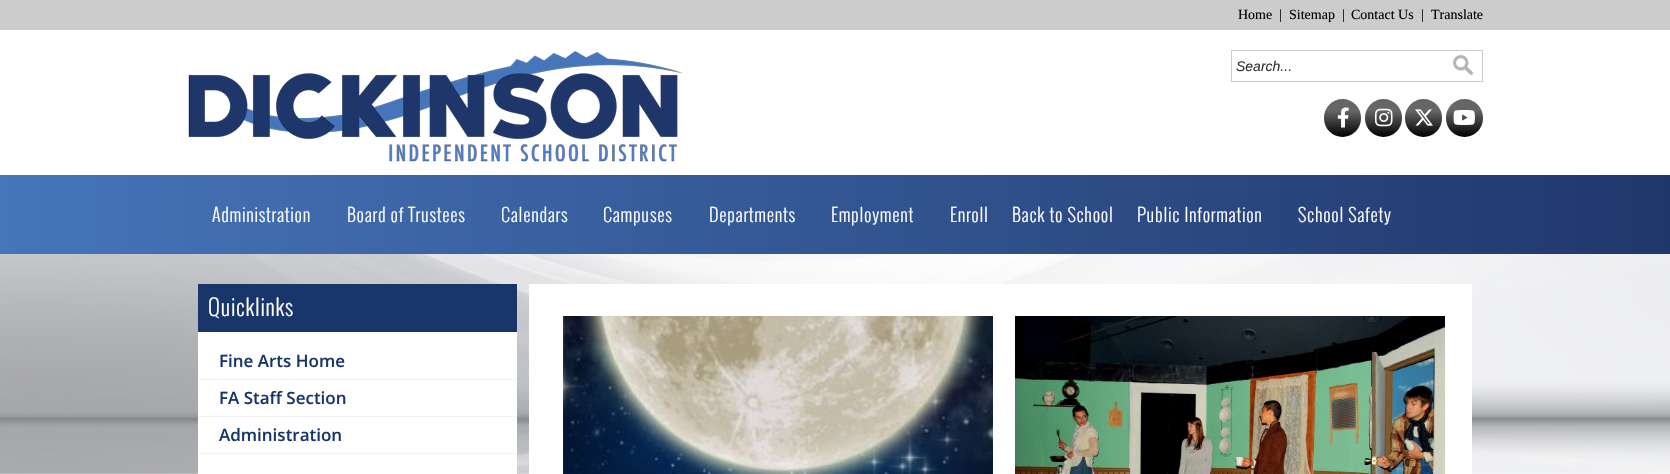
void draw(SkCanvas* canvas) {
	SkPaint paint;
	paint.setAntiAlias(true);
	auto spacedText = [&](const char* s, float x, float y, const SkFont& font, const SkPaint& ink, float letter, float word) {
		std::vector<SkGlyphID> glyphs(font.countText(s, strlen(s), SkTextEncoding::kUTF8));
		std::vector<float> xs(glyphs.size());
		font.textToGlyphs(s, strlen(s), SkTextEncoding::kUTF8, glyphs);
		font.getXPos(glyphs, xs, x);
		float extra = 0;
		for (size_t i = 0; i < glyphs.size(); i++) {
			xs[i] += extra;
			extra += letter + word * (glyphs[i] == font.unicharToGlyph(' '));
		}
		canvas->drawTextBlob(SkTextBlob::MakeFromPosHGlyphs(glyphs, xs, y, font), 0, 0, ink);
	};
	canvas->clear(0xffffffff);
	canvas->drawImageRect(SkImages::DeferredFromEncodedData(SkData::MakeFromFileName("img1.png")), SkRect::MakeXYWH(0, 254, 1670, 220), SkSamplingOptions());
	paint.setColor(0xffcccccc);
	canvas->drawRect(SkRect::MakeXYWH(0, 0, 1670, 30), paint);
	canvas->drawImageRect(SkImages::DeferredFromEncodedData(SkData::MakeFromFileName("img2.png")), SkRect::MakeXYWH(188, 51, 495, 111), SkSamplingOptions());
	SkFont f1(fontMgr->matchFamilyStyle("Liberation Serif", SkFontStyle::Normal()), 14);
	f1.setSubpixel(true);
	paint.setColor(0xff000000);
	canvas->drawString("Home", 1238, 19, f1, paint);
	canvas->drawString("|", 1279, 19, f1, paint);
	canvas->drawString("Sitemap", 1289, 19, f1, paint);
	canvas->drawString("|", 1342, 19, f1, paint);
	canvas->drawString("Contact Us", 1351, 19, f1, paint);
	canvas->drawString("|", 1421, 19, f1, paint);
	canvas->drawString("Translate", 1431, 19, f1, paint);
	paint.setStroke(true);
	paint.setStrokeWidth(1);
	paint.setColor(0xffcccccc);
	canvas->drawRect(SkRect::MakeXYWH(1231.5, 50.5, 251, 31), paint);
	SkFont f2(fontMgr->matchFamilyStyle("Liberation Sans", SkFontStyle::Italic()), 14);
	f2.setSubpixel(true);
	paint.setStroke(false);
	paint.setColor(0xff333333);
	canvas->drawString("Search...", 1236, 71, f2, paint);
	canvas->drawImageRect(SkImages::DeferredFromEncodedData(SkData::MakeFromFileName("img3.png")), SkRect::MakeXYWH(1453, 55, 20, 20), SkSamplingOptions());
	{
		const SkColor colors[] = {0xff000000, 0xff666666};
		const float stops[] = {0, 0.7};
		const SkPoint ends[] = {{1343, 137}, {1343, 99}};
		paint.setShader(SkGradientShader::MakeLinear(ends, colors, stops, 2, SkTileMode::kClamp));
		paint.setAlpha(255);
	}
	canvas->drawRoundRect(SkRect::MakeXYWH(1324, 99, 37, 38), 18.5, 18.5, paint);
	canvas->drawImageRect(SkImages::DeferredFromEncodedData(SkData::MakeFromFileName("img4.png")), SkRect::MakeXYWH(1337, 107, 12, 21), SkSamplingOptions());
	{
		const SkColor colors[] = {0xff000000, 0xff666666};
		const float stops[] = {0, 0.7};
		const SkPoint ends[] = {{1384, 137}, {1384, 99}};
		paint.setShader(SkGradientShader::MakeLinear(ends, colors, stops, 2, SkTileMode::kClamp));
		paint.setAlpha(255);
	}
	canvas->drawRoundRect(SkRect::MakeXYWH(1365, 99, 37, 38), 18.5, 18.5, paint);
	canvas->drawImageRect(SkImages::DeferredFromEncodedData(SkData::MakeFromFileName("img5.png")), SkRect::MakeXYWH(1375, 108, 18, 19), SkSamplingOptions());
	{
		const SkColor colors[] = {0xff000000, 0xff666666};
		const float stops[] = {0, 0.7};
		const SkPoint ends[] = {{1424, 137}, {1424, 99}};
		paint.setShader(SkGradientShader::MakeLinear(ends, colors, stops, 2, SkTileMode::kClamp));
		paint.setAlpha(255);
	}
	canvas->drawRoundRect(SkRect::MakeXYWH(1405, 99, 37, 38), 18.5, 18.5, paint);
	canvas->drawImageRect(SkImages::DeferredFromEncodedData(SkData::MakeFromFileName("img6.png")), SkRect::MakeXYWH(1415, 109, 18, 17), SkSamplingOptions());
	{
		const SkColor colors[] = {0xff000000, 0xff666666};
		const float stops[] = {0, 0.7};
		const SkPoint ends[] = {{1465, 137}, {1465, 99}};
		paint.setShader(SkGradientShader::MakeLinear(ends, colors, stops, 2, SkTileMode::kClamp));
		paint.setAlpha(255);
	}
	canvas->drawRoundRect(SkRect::MakeXYWH(1446, 99, 37, 38), 18.5, 18.5, paint);
	canvas->drawImageRect(SkImages::DeferredFromEncodedData(SkData::MakeFromFileName("img7.png")), SkRect::MakeXYWH(1453, 110, 22, 15), SkSamplingOptions());
	{
		const SkColor colors[] = {0xff20376b, 0xff4675ba};
		const float stops[] = {0, 1};
		const SkPoint ends[] = {{1670, 214}, {0, 215}};
		paint.setShader(SkGradientShader::MakeLinear(ends, colors, stops, 2, SkTileMode::kClamp));
		paint.setAlpha(255);
	}
	canvas->drawRect(SkRect::MakeXYWH(0, 175, 1670, 79), paint);
	SkFont f3(fontMgr->matchFamilyStyle("Oswald", SkFontStyle(300, SkFontStyle::kNormal_Width, SkFontStyle::kUpright_Slant)), 18);
	f3.setSubpixel(true);
	paint.setShader(nullptr);
	paint.setColor(0xffffffff);
	spacedText("Administration", 212, 222, f3, paint, 0.7, 0);
	spacedText("Board of Trustees", 347, 222, f3, paint, 0.7, 0);
	spacedText("Calendars", 501, 222, f3, paint, 0.7, 0);
	spacedText("Campuses", 603, 222, f3, paint, 0.7, 0);
	spacedText("Departments", 709, 222, f3, paint, 0.7, 0);
	spacedText("Employment", 831, 222, f3, paint, 0.7, 0);
	spacedText("Enroll", 950, 222, f3, paint, 0.7, 0);
	spacedText("Back to School", 1012, 222, f3, paint, 0.7, 0);
	spacedText("Public Information", 1137, 222, f3, paint, 0.7, 0);
	spacedText("School Safety", 1298, 222, f3, paint, 0.7, 0);
	canvas->drawRect(SkRect::MakeXYWH(198, 332, 319, 142), paint);
	paint.setColor(0xff19366b);
	canvas->drawRect(SkRect::MakeXYWH(198, 284, 319, 48), paint);
	SkFont f4(fontMgr->matchFamilyStyle("Oswald", SkFontStyle(300, SkFontStyle::kNormal_Width, SkFontStyle::kUpright_Slant)), 22);
	f4.setSubpixel(true);
	paint.setColor(0xffffffff);
	spacedText("Quicklinks", 208, 316, f4, paint, 0.7, 0);
	SkFont f5(fontMgr->matchFamilyStyle("Open Sans", SkFontStyle(600, SkFontStyle::kNormal_Width, SkFontStyle::kUpright_Slant)), 17);
	f5.setSubpixel(true);
	paint.setColor(0xff19366b);
	canvas->drawString("Fine Arts Home", 219, 367, f5, paint);
	paint.setColor(0xfff2f2f2);
	canvas->drawRect(SkRect::MakeXYWH(199, 379, 317, 1), paint);
	paint.setColor(0xff19366b);
	canvas->drawString("FA Staff Section", 219, 404, f5, paint);
	paint.setColor(0xfff2f2f2);
	canvas->drawRect(SkRect::MakeXYWH(199, 416, 317, 1), paint);
	paint.setColor(0xff19366b);
	canvas->drawString("Administration", 219, 441, f5, paint);
	paint.setColor(0xfff2f2f2);
	canvas->drawRect(SkRect::MakeXYWH(199, 453, 317, 1), paint);
	paint.setColor(0xffffffff);
	canvas->drawRect(SkRect::MakeXYWH(529, 284, 943, 190), paint);
	canvas->drawImageRect(SkImages::DeferredFromEncodedData(SkData::MakeFromFileName("img8.png")), SkRect::MakeXYWH(563, 316, 430, 158), SkSamplingOptions());
	canvas->drawImageRect(SkImages::DeferredFromEncodedData(SkData::MakeFromFileName("img9.png")), SkRect::MakeXYWH(1015, 316, 430, 158), SkSamplingOptions());
}
